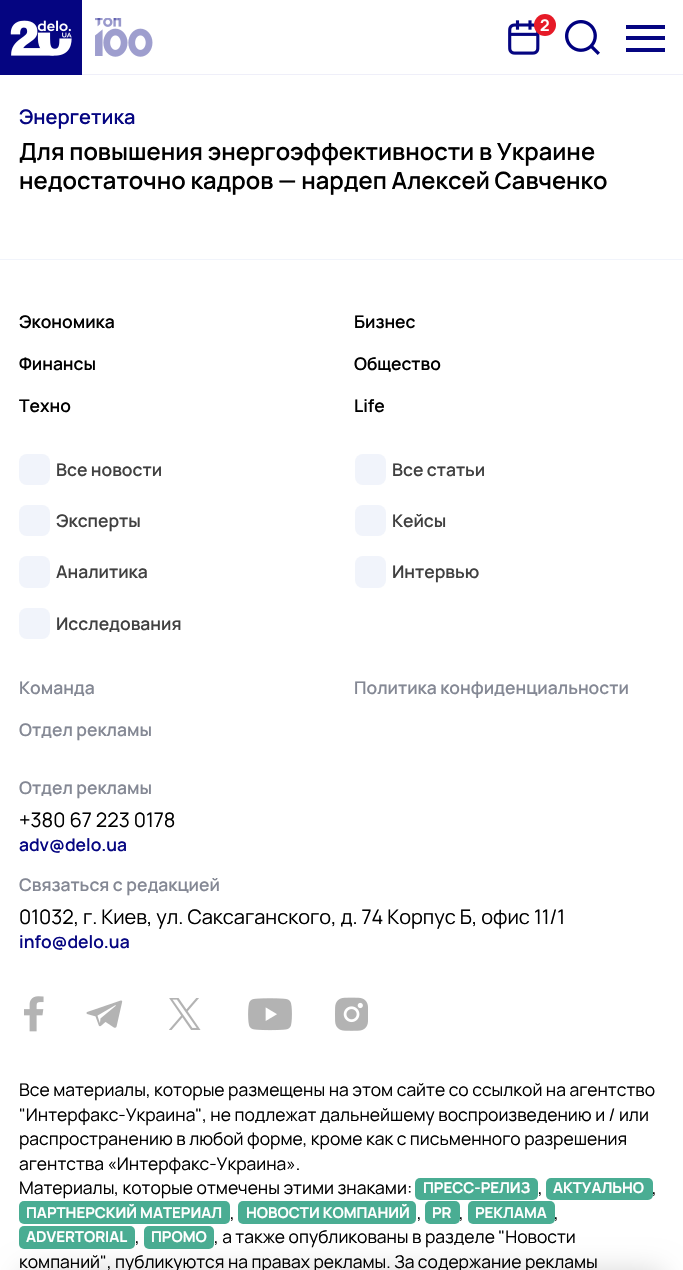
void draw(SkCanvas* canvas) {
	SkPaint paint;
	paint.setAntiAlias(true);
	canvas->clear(0xffffffff);
	canvas->drawImageRect(SkImages::DeferredFromEncodedData(SkData::MakeFromFileName("img1.png")), SkRect::MakeXYWH(0, 0, 82, 75), SkSamplingOptions());
	canvas->drawImageRect(SkImages::DeferredFromEncodedData(SkData::MakeFromFileName("img2.png")), SkRect::MakeXYWH(95, 18, 58, 39), SkSamplingOptions());
	canvas->drawImageRect(SkImages::DeferredFromEncodedData(SkData::MakeFromFileName("img3.png")), SkRect::MakeXYWH(508, 20, 32, 35), SkSamplingOptions());
	paint.setColor(0xffe61a27);
	canvas->drawCircle(545, 25, 11, paint);
	SkFont f1(fontMgr->matchFamilyStyle("Manrope", SkFontStyle::Bold()), 16);
	f1.setSubpixel(true);
	paint.setColor(0xffffffff);
	canvas->drawString("2", 540, 31, f1, paint);
	canvas->drawImageRect(SkImages::DeferredFromEncodedData(SkData::MakeFromFileName("img4.png")), SkRect::MakeXYWH(565, 20, 35, 35), SkSamplingOptions());
	paint.setColor(0xff050581);
	canvas->drawRect(SkRect::MakeXYWH(626, 25, 39, 4), paint);
	canvas->drawRect(SkRect::MakeXYWH(626, 36, 39, 4), paint);
	canvas->drawRect(SkRect::MakeXYWH(626, 48, 39, 4), paint);
	paint.setColor(0xffefeff9);
	canvas->drawRect(SkRect::MakeXYWH(82, 74, 601, 1), paint);
	SkFont f2(fontMgr->matchFamilyStyle("Manrope", SkFontStyle(600, SkFontStyle::kNormal_Width, SkFontStyle::kUpright_Slant)), 20);
	f2.setSubpixel(true);
	paint.setColor(0xff050581);
	canvas->drawString("Энергетика", 19, 124, f2, paint);
	SkFont f3(fontMgr->matchFamilyStyle("Manrope", SkFontStyle(600, SkFontStyle::kNormal_Width, SkFontStyle::kUpright_Slant)), 23.75);
	f3.setSubpixel(true);
	paint.setColor(0xff000000);
	canvas->drawString("Для повышения энергоэффективности в Украине", 19, 160, f3, paint);
	canvas->drawString("недостаточно кадров — нардеп Алексей Савченко", 19, 189, f3, paint);
	paint.setColor(0xff4aad93);
	canvas->drawRoundRect(SkRect::MakeXYWH(19, 1226, 116, 23), 5, 5, paint);
	canvas->drawRoundRect(SkRect::MakeXYWH(144, 1226, 70, 23), 5, 5, paint);
	paint.setColor(0x26000000);
	paint.setMaskFilter(SkMaskFilter::MakeBlur(kNormal_SkBlurStyle, 14));
	canvas->drawRoundRect(SkRect::MakeXYWH(21, 1270, 643, 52), 10, 10, paint);
	paint.setMaskFilter(nullptr);
	paint.setColor(0xfff1f4fb);
	canvas->drawRect(SkRect::MakeXYWH(0, 259, 683, 1), paint);
	SkFont f4(fontMgr->matchFamilyStyle("Manrope", SkFontStyle(600, SkFontStyle::kNormal_Width, SkFontStyle::kUpright_Slant)), 17.5);
	f4.setSubpixel(true);
	paint.setColor(0xff000000);
	canvas->drawString("Экономика", 19, 328, f4, paint);
	canvas->drawString("Бизнес", 354, 328, f4, paint);
	canvas->drawString("Финансы", 19, 370, f4, paint);
	canvas->drawString("Общество", 354, 370, f4, paint);
	canvas->drawString("Техно", 19, 412, f4, paint);
	canvas->drawString("Life", 354, 412, f4, paint);
	paint.setColor(0xfff1f4fb);
	canvas->drawRoundRect(SkRect::MakeXYWH(19, 454, 31, 31), 8, 8, paint);
	paint.setColor(0xff404040);
	canvas->drawString("Все новости", 56, 476, f4, paint);
	paint.setColor(0xfff1f4fb);
	canvas->drawRoundRect(SkRect::MakeXYWH(355, 454, 31, 31), 8, 8, paint);
	paint.setColor(0xff404040);
	canvas->drawString("Все статьи", 392, 476, f4, paint);
	paint.setColor(0xfff1f4fb);
	canvas->drawRoundRect(SkRect::MakeXYWH(19, 505, 31, 31), 8, 8, paint);
	paint.setColor(0xff404040);
	canvas->drawString("Эксперты", 56, 527, f4, paint);
	paint.setColor(0xfff1f4fb);
	canvas->drawRoundRect(SkRect::MakeXYWH(355, 505, 31, 31), 8, 8, paint);
	paint.setColor(0xff404040);
	canvas->drawString("Кейсы", 392, 527, f4, paint);
	paint.setColor(0xfff1f4fb);
	canvas->drawRoundRect(SkRect::MakeXYWH(19, 556, 31, 32), 8, 8, paint);
	paint.setColor(0xff404040);
	canvas->drawString("Аналитика", 56, 578, f4, paint);
	paint.setColor(0xfff1f4fb);
	canvas->drawRoundRect(SkRect::MakeXYWH(355, 556, 31, 32), 8, 8, paint);
	paint.setColor(0xff404040);
	canvas->drawString("Интервью", 392, 578, f4, paint);
	paint.setColor(0xfff1f4fb);
	canvas->drawRoundRect(SkRect::MakeXYWH(19, 608, 31, 31), 8, 8, paint);
	paint.setColor(0xff404040);
	canvas->drawString("Исследования", 56, 630, f4, paint);
	paint.setColor(0xff848894);
	canvas->drawString("Команда", 19, 694, f4, paint);
	canvas->drawString("Политика конфиденциальности", 354, 694, f4, paint);
	canvas->drawString("Отдел рекламы", 19, 736, f4, paint);
	canvas->drawString("Отдел рекламы", 19, 794, f4, paint);
	SkFont f5(fontMgr->matchFamilyStyle("Manrope", SkFontStyle::Normal()), 20);
	f5.setSubpixel(true);
	paint.setColor(0xff000000);
	canvas->drawString("+380 67 223 0178", 19, 827, f5, paint);
	paint.setColor(0xff050581);
	canvas->drawString("adv@delo.ua", 19, 851, f4, paint);
	paint.setColor(0xff848894);
	canvas->drawString("Связаться с редакцией", 19, 891, f4, paint);
	paint.setColor(0xff000000);
	canvas->drawString("01032, г. Киев, ул. Саксаганского, д. 74 Корпус Б, офис 11/1", 19, 924, f5, paint);
	paint.setColor(0xff050581);
	canvas->drawString("info@delo.ua", 19, 948, f4, paint);
	canvas->drawImageRect(SkImages::DeferredFromEncodedData(SkData::MakeFromFileName("img5.png")), SkRect::MakeXYWH(24, 996, 20, 36), SkSamplingOptions());
	canvas->drawImageRect(SkImages::DeferredFromEncodedData(SkData::MakeFromFileName("img6.png")), SkRect::MakeXYWH(86, 1000, 37, 28), SkSamplingOptions());
	canvas->drawImageRect(SkImages::DeferredFromEncodedData(SkData::MakeFromFileName("img7.png")), SkRect::MakeXYWH(169, 998, 32, 32), SkSamplingOptions());
	canvas->drawImageRect(SkImages::DeferredFromEncodedData(SkData::MakeFromFileName("img8.png")), SkRect::MakeXYWH(248, 998, 44, 33), SkSamplingOptions());
	canvas->drawImageRect(SkImages::DeferredFromEncodedData(SkData::MakeFromFileName("img9.png")), SkRect::MakeXYWH(335, 997, 33, 34), SkSamplingOptions());
	SkFont f6(fontMgr->matchFamilyStyle("Manrope", SkFontStyle::Normal()), 17.5);
	f6.setSubpixel(true);
	paint.setColor(0xff000000);
	canvas->drawString("Все материалы, которые размещены на этом сайте со ссылкой на агентство", 19, 1096, f6, paint);
	canvas->drawString("\"Интерфакс-Украина\", не подлежат дальнейшему воспроизведению и / или", 19, 1121, f6, paint);
	canvas->drawString("распространению в любой форме, кроме как с письменного разрешения", 19, 1145, f6, paint);
	canvas->drawString("агентства «Интерфакс-Украина».", 19, 1170, f6, paint);
	canvas->drawString("Материалы, которые отмечены этими знаками:", 19, 1194, f6, paint);
	paint.setColor(0xff4aad93);
	canvas->drawRoundRect(SkRect::MakeXYWH(415, 1178, 123, 22), 5, 5, paint);
	SkFont f7(fontMgr->matchFamilyStyle("Manrope", SkFontStyle::Bold()), 15);
	f7.setSubpixel(true);
	paint.setColor(0xffffffff);
	canvas->drawString("ПРЕСС-РЕЛИЗ", 423, 1193, f7, paint);
	paint.setColor(0xff000000);
	canvas->drawString(",", 538, 1194, f6, paint);
	paint.setColor(0xff4aad93);
	canvas->drawRoundRect(SkRect::MakeXYWH(546, 1178, 107, 22), 5, 5, paint);
	paint.setColor(0xffffffff);
	canvas->drawString("АКТУАЛЬНО", 553, 1193, f7, paint);
	paint.setColor(0xff000000);
	canvas->drawString(",", 652, 1194, f6, paint);
	paint.setColor(0xff4aad93);
	canvas->drawRoundRect(SkRect::MakeXYWH(19, 1201, 211, 23), 5, 5, paint);
	paint.setColor(0xffffffff);
	canvas->drawString("ПАРТНЕРСКИЙ МАТЕРИАЛ", 26, 1218, f7, paint);
	paint.setColor(0xff000000);
	canvas->drawString(",", 230, 1219, f6, paint);
	paint.setColor(0xff4aad93);
	canvas->drawRoundRect(SkRect::MakeXYWH(238, 1201, 178, 23), 5, 5, paint);
	paint.setColor(0xffffffff);
	canvas->drawString("НОВОСТИ КОМПАНИЙ", 246, 1218, f7, paint);
	paint.setColor(0xff000000);
	canvas->drawString(",", 417, 1219, f6, paint);
	paint.setColor(0xff4aad93);
	canvas->drawRoundRect(SkRect::MakeXYWH(425, 1201, 35, 23), 5, 5, paint);
	paint.setColor(0xffffffff);
	canvas->drawString("PR", 432, 1218, f7, paint);
	paint.setColor(0xff000000);
	canvas->drawString(",", 459, 1219, f6, paint);
	paint.setColor(0xff4aad93);
	canvas->drawRoundRect(SkRect::MakeXYWH(468, 1201, 87, 23), 5, 5, paint);
	paint.setColor(0xffffffff);
	canvas->drawString("РЕКЛАМА", 475, 1218, f7, paint);
	paint.setColor(0xff000000);
	canvas->drawString(",", 554, 1219, f6, paint);
	paint.setColor(0xffffffff);
	canvas->drawString("ADVERTORIAL", 26, 1242, f7, paint);
	paint.setColor(0xff000000);
	canvas->drawString(",", 135, 1243, f6, paint);
	paint.setColor(0xffffffff);
	canvas->drawString("ПРОМО", 151, 1242, f7, paint);
	paint.setColor(0xff000000);
	canvas->drawString(", а также опубликованы в разделе \"Новости", 214, 1243, f6, paint);
	canvas->drawString("компаний\", публикуются на правах рекламы. За содержание рекламы", 19, 1268, f6, paint);
}
